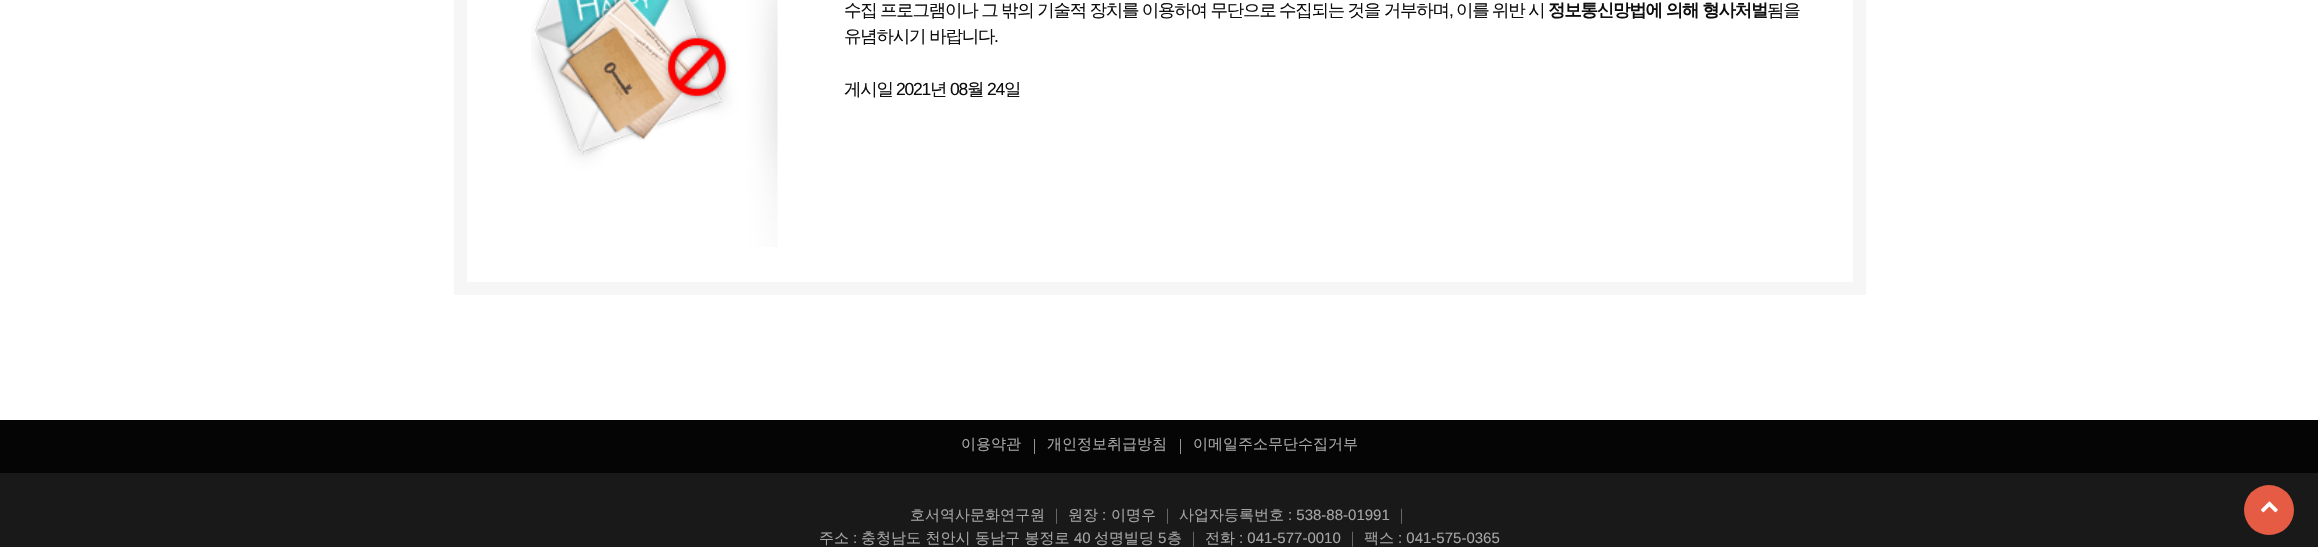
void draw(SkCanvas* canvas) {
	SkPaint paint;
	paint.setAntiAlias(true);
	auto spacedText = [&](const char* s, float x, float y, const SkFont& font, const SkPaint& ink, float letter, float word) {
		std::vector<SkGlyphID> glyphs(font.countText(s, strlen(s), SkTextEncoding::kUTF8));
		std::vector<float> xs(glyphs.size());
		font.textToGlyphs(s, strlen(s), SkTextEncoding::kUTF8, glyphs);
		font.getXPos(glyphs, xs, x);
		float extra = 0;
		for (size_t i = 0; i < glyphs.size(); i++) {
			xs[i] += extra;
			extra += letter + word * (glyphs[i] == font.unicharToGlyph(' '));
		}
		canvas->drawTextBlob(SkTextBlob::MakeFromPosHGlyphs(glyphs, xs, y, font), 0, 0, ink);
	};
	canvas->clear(0xffffffff);
	paint.setStroke(true);
	paint.setStrokeWidth(13);
	paint.setColor(0xfff6f6f6);
	canvas->drawRect(SkRect::MakeXYWH(460.5, -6.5, 1399, 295), paint);
	canvas->drawImageRect(SkImages::DeferredFromEncodedData(SkData::MakeFromFileName("img1.png")), SkRect::MakeXYWH(531, 0, 247, 247), SkSamplingOptions());
	SkFont f1(fontMgr->matchFamilyStyle("WenQuanYi Zen Hei", SkFontStyle(500, SkFontStyle::kNormal_Width, SkFontStyle::kUpright_Slant)), 17.5);
	f1.setSubpixel(true);
	paint.setStroke(false);
	paint.setColor(0xff0e0e0e);
	spacedText("수집 프로그램이나 그 밖의 기술적 장치를 이용하여 무단으로 수집되는 것을 거부하며", 844, 16, f1, paint, -1.25, -0.4);
	SkFont f2(fontMgr->matchFamilyStyle("Liberation Sans", SkFontStyle::Normal()), 17.5);
	f2.setSubpixel(true);
	spacedText(",", 1449, 16, f2, paint, -1.25, 0);
	spacedText("이를 위반 시", 1456, 16, f1, paint, -1.25, -0.4);
	SkFont f3(fontMgr->matchFamilyStyle("WenQuanYi Zen Hei", SkFontStyle::Bold()), 17.5);
	f3.setSubpixel(true);
	spacedText("정보통신망법에 의해 형사처벌", 1548, 16, f3, paint, -1.25, 0);
	spacedText("됨을", 1767, 16, f1, paint, -1.25, 0);
	spacedText("유념하시기 바랍니다", 844, 42, f1, paint, -1.25, 0);
	spacedText(".", 994, 42, f2, paint, -1.25, 0);
	spacedText("게시일", 844, 95, f1, paint, -1.25, 0);
	spacedText("2021", 896, 95, f2, paint, -1.25, 0);
	spacedText("년", 930, 95, f1, paint, -1.25, 0);
	spacedText("08", 950, 95, f2, paint, -1.25, 0);
	spacedText("월", 967, 95, f1, paint, -1.25, 0);
	spacedText("24", 987, 95, f2, paint, -1.25, 0);
	spacedText("일", 1004, 95, f1, paint, -1.25, 0);
	paint.setColor(0xff191919);
	canvas->drawRect(SkRect::MakeXYWH(0, 473, 2318, 74), paint);
	paint.setColor(0xff050505);
	canvas->drawRect(SkRect::MakeXYWH(0, 420, 2318, 53), paint);
	SkFont f4(fontMgr->matchFamilyStyle("WenQuanYi Zen Hei", SkFontStyle(500, SkFontStyle::kNormal_Width, SkFontStyle::kUpright_Slant)), 15);
	f4.setSubpixel(true);
	paint.setColor(0xffa5a5a5);
	canvas->drawString("이용약관", 961, 449, f4, paint);
	paint.setColor(0xff969696);
	canvas->drawRect(SkRect::MakeXYWH(1034, 439, 1, 15), paint);
	paint.setColor(0xffa5a5a5);
	canvas->drawString("개인정보취급방침", 1047, 449, f4, paint);
	paint.setColor(0xff969696);
	canvas->drawRect(SkRect::MakeXYWH(1180, 439, 1, 15), paint);
	paint.setColor(0xffa5a5a5);
	canvas->drawString("이메일주소무단수집거부", 1193, 449, f4, paint);
	canvas->drawString("호서역사문화연구원", 910, 520, f4, paint);
	paint.setColor(0xff6b6b6b);
	canvas->drawString("｜", 1049, 520, f4, paint);
	paint.setColor(0xffa5a5a5);
	canvas->drawString("원장", 1068, 520, f4, paint);
	SkFont f5(fontMgr->matchFamilyStyle("Liberation Sans", SkFontStyle::Normal()), 15);
	f5.setSubpixel(true);
	canvas->drawString(":", 1102, 520, f5, paint);
	canvas->drawString("이명우", 1111, 520, f4, paint);
	paint.setColor(0xff6b6b6b);
	canvas->drawString("｜", 1160, 520, f4, paint);
	paint.setColor(0xffa5a5a5);
	canvas->drawString("사업자등록번호", 1179, 520, f4, paint);
	canvas->drawString(": 538-88-01991", 1288, 520, f5, paint);
	paint.setColor(0xff6b6b6b);
	canvas->drawString("｜", 1394, 520, f4, paint);
	paint.setColor(0xffa5a5a5);
	canvas->drawString("주소", 819, 543, f4, paint);
	canvas->drawString(":", 853, 543, f5, paint);
	canvas->drawString("충청남도 천안시 동남구 봉정로", 861, 543, f4, paint);
	canvas->drawString("40", 1074, 543, f5, paint);
	canvas->drawString("성명빌딩", 1094, 543, f4, paint);
	canvas->drawString("5", 1158, 543, f5, paint);
	canvas->drawString("층", 1167, 543, f4, paint);
	paint.setColor(0xff6b6b6b);
	canvas->drawString("｜", 1186, 543, f4, paint);
	paint.setColor(0xffa5a5a5);
	canvas->drawString("전화", 1205, 543, f4, paint);
	canvas->drawString(": 041-577-0010", 1239, 543, f5, paint);
	paint.setColor(0xff6b6b6b);
	canvas->drawString("｜", 1345, 543, f4, paint);
	paint.setColor(0xffa5a5a5);
	canvas->drawString("팩스", 1364, 543, f4, paint);
	canvas->drawString(": 041-575-0365", 1398, 543, f5, paint);
	paint.setColor(0xffe65b43);
	canvas->drawCircle(2269, 510, 25, paint);
	canvas->drawImageRect(SkImages::DeferredFromEncodedData(SkData::MakeFromFileName("img2.png")), SkRect::MakeXYWH(2261, 501, 17, 12), SkSamplingOptions());
}
